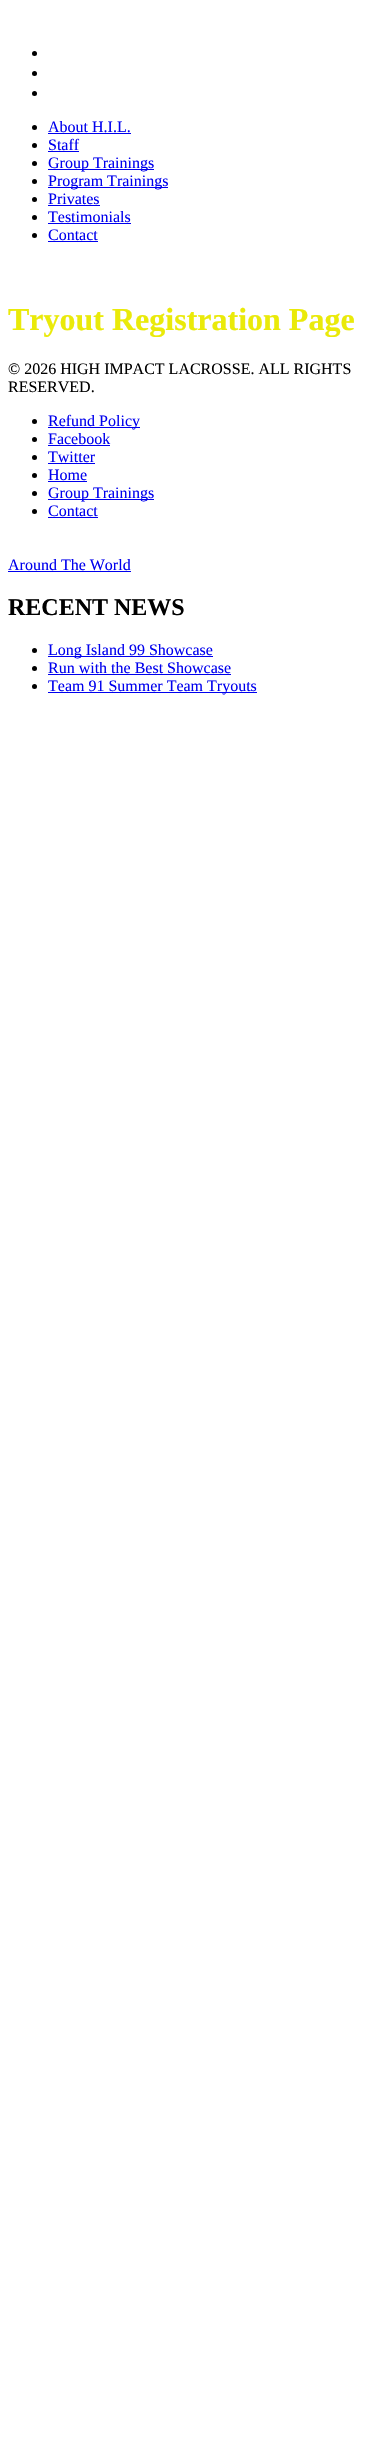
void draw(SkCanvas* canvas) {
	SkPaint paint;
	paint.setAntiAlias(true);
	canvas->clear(0xffffffff);
	paint.setColor(0xff000000);
	canvas->drawCircle(34.5, 53.5, 2.5, paint);
	canvas->drawCircle(34.5, 73.5, 2.5, paint);
	canvas->drawCircle(34.5, 93.5, 2.5, paint);
	canvas->drawCircle(34.5, 127.5, 2.5, paint);
	SkFont f1(fontMgr->matchFamilyStyle("Liberation Serif", SkFontStyle::Normal()), 16);
	f1.setSubpixel(true);
	paint.setColor(0xff0000ee);
	canvas->drawString("About H.I.L.", 48, 132, f1, paint);
	canvas->drawRect(SkRect::MakeXYWH(48, 133, 83, 1), paint);
	paint.setColor(0xff000000);
	canvas->drawCircle(34.5, 145.5, 2.5, paint);
	paint.setColor(0xff0000ee);
	canvas->drawString("Staff", 48, 150, f1, paint);
	canvas->drawRect(SkRect::MakeXYWH(48, 151, 31, 1), paint);
	paint.setColor(0xff000000);
	canvas->drawCircle(34.5, 163.5, 2.5, paint);
	paint.setColor(0xff0000ee);
	canvas->drawRect(SkRect::MakeXYWH(48, 169, 106, 1), paint);
	canvas->drawString("Group Trainings", 48, 168, f1, paint);
	paint.setColor(0xff000000);
	canvas->drawCircle(34.5, 181.5, 2.5, paint);
	paint.setColor(0xff0000ee);
	canvas->drawRect(SkRect::MakeXYWH(48, 187, 120, 1), paint);
	canvas->drawString("Program Trainings", 48, 186, f1, paint);
	paint.setColor(0xff000000);
	canvas->drawCircle(34.5, 199.5, 2.5, paint);
	paint.setColor(0xff0000ee);
	canvas->drawString("Privates", 48, 204, f1, paint);
	canvas->drawRect(SkRect::MakeXYWH(48, 205, 52, 1), paint);
	paint.setColor(0xff000000);
	canvas->drawCircle(34.5, 217.5, 2.5, paint);
	paint.setColor(0xff0000ee);
	canvas->drawString("Testimonials", 48, 222, f1, paint);
	canvas->drawRect(SkRect::MakeXYWH(48, 223, 83, 1), paint);
	paint.setColor(0xff000000);
	canvas->drawCircle(34.5, 235.5, 2.5, paint);
	paint.setColor(0xff0000ee);
	canvas->drawString("Contact", 48, 240, f1, paint);
	canvas->drawRect(SkRect::MakeXYWH(48, 241, 50, 1), paint);
	SkFont f2(fontMgr->matchFamilyStyle("Liberation Serif", SkFontStyle::Bold()), 32);
	f2.setSubpixel(true);
	paint.setColor(0xffeaea09);
	canvas->drawString("Tryout Registration Page", 8, 330, f2, paint);
	paint.setColor(0xff000000);
	canvas->drawString("© 2026 HIGH IMPACT LACROSSE. ALL RIGHTS", 8, 374, f1, paint);
	canvas->drawString("RESERVED.", 8, 392, f1, paint);
	canvas->drawCircle(34.5, 421.5, 2.5, paint);
	paint.setColor(0xff0000ee);
	canvas->drawRect(SkRect::MakeXYWH(48, 427, 92, 1), paint);
	canvas->drawString("Refund Policy", 48, 426, f1, paint);
	paint.setColor(0xff000000);
	canvas->drawCircle(34.5, 439.5, 2.5, paint);
	paint.setColor(0xff0000ee);
	canvas->drawString("Facebook", 48, 444, f1, paint);
	canvas->drawRect(SkRect::MakeXYWH(48, 445, 62, 1), paint);
	paint.setColor(0xff000000);
	canvas->drawCircle(34.5, 457.5, 2.5, paint);
	paint.setColor(0xff0000ee);
	canvas->drawString("Twitter", 48, 462, f1, paint);
	canvas->drawRect(SkRect::MakeXYWH(48, 463, 47, 1), paint);
	paint.setColor(0xff000000);
	canvas->drawCircle(34.5, 475.5, 2.5, paint);
	paint.setColor(0xff0000ee);
	canvas->drawString("Home", 48, 480, f1, paint);
	canvas->drawRect(SkRect::MakeXYWH(48, 481, 39, 1), paint);
	paint.setColor(0xff000000);
	canvas->drawCircle(34.5, 493.5, 2.5, paint);
	paint.setColor(0xff0000ee);
	canvas->drawRect(SkRect::MakeXYWH(48, 499, 106, 1), paint);
	canvas->drawString("Group Trainings", 48, 498, f1, paint);
	paint.setColor(0xff000000);
	canvas->drawCircle(34.5, 511.5, 2.5, paint);
	paint.setColor(0xff0000ee);
	canvas->drawString("Contact", 48, 516, f1, paint);
	canvas->drawRect(SkRect::MakeXYWH(48, 517, 50, 1), paint);
	canvas->drawString("Around The World", 8, 570, f1, paint);
	canvas->drawRect(SkRect::MakeXYWH(8, 571, 123, 1), paint);
	SkFont f3(fontMgr->matchFamilyStyle("Liberation Serif", SkFontStyle::Bold()), 24);
	f3.setSubpixel(true);
	paint.setColor(0xff000000);
	canvas->drawString("RECENT NEWS", 8, 615, f3, paint);
	canvas->drawCircle(34.5, 650.5, 2.5, paint);
	paint.setColor(0xff0000ee);
	canvas->drawRect(SkRect::MakeXYWH(48, 656, 165, 1), paint);
	canvas->drawString("Long Island 99 Showcase", 48, 655, f1, paint);
	paint.setColor(0xff000000);
	canvas->drawCircle(34.5, 668.5, 2.5, paint);
	paint.setColor(0xff0000ee);
	canvas->drawString("Run with the Best Showcase", 48, 673, f1, paint);
	canvas->drawRect(SkRect::MakeXYWH(48, 674, 183, 1), paint);
	paint.setColor(0xff000000);
	canvas->drawCircle(34.5, 686.5, 2.5, paint);
	paint.setColor(0xff0000ee);
	canvas->drawRect(SkRect::MakeXYWH(48, 692, 209, 1), paint);
	canvas->drawString("Team 91 Summer Team Tryouts", 48, 691, f1, paint);
}
